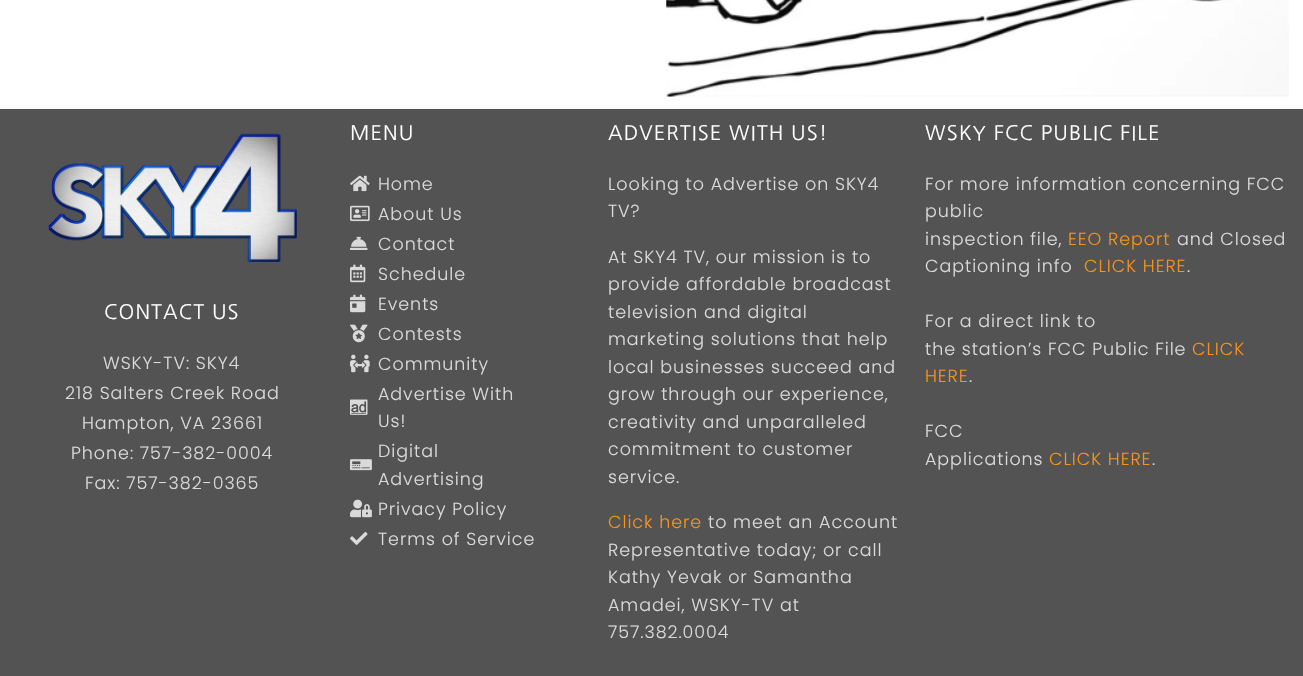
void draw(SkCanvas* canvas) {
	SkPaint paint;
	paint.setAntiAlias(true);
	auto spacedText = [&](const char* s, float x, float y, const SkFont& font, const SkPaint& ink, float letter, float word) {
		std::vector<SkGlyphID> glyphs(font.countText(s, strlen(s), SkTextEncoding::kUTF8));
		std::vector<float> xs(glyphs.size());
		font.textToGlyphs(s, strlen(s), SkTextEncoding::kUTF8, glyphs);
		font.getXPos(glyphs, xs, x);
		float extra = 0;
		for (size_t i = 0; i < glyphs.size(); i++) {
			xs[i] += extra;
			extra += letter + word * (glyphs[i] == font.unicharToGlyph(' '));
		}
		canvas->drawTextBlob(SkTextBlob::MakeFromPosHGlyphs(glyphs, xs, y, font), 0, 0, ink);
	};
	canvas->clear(0xffffffff);
	canvas->drawImageRect(SkImages::DeferredFromEncodedData(SkData::MakeFromFileName("img1.png")), SkRect::MakeXYWH(666, 0, 623, 97), SkSamplingOptions());
	paint.setColor(0xff535353);
	canvas->drawRect(SkRect::MakeXYWH(0, 109, 1303, 567), paint);
	canvas->drawImageRect(SkImages::DeferredFromEncodedData(SkData::MakeFromFileName("img2.png")), SkRect::MakeXYWH(48, 133, 250, 130), SkSamplingOptions());
	SkFont f1(fontMgr->matchFamilyStyle("NanumGothic", SkFontStyle::Normal()), 20);
	f1.setSubpixel(true);
	paint.setColor(0xffffffff);
	spacedText("CONTACT US", 104, 319, f1, paint, 1.1, 0);
	SkFont f2(fontMgr->matchFamilyStyle("Poppins", SkFontStyle(300, SkFontStyle::kNormal_Width, SkFontStyle::kUpright_Slant)), 17.5);
	f2.setSubpixel(true);
	paint.setColor(0xffdadada);
	spacedText("WSKY-TV: SKY4", 103, 369, f2, paint, 0.95, 0);
	spacedText("218 Salters Creek Road", 65, 399, f2, paint, 0.95, 0);
	spacedText("Hampton, VA 23661", 82, 429, f2, paint, 0.95, 0);
	spacedText("Phone: 757-382-0004", 71, 459, f2, paint, 0.95, 0);
	spacedText("Fax: 757-382-0365", 85, 489, f2, paint, 0.95, 0);
	paint.setColor(0xffffffff);
	spacedText("MENU", 350, 140, f1, paint, 1.1, 0);
	canvas->drawImageRect(SkImages::DeferredFromEncodedData(SkData::MakeFromFileName("img3.png")), SkRect::MakeXYWH(350, 175, 20, 17), SkSamplingOptions());
	paint.setColor(0xffdadada);
	spacedText("Home", 378, 190, f2, paint, 0.95, 0);
	canvas->drawImageRect(SkImages::DeferredFromEncodedData(SkData::MakeFromFileName("img4.png")), SkRect::MakeXYWH(350, 205, 20, 17), SkSamplingOptions());
	spacedText("About Us", 378, 220, f2, paint, 0.95, 0);
	canvas->drawImageRect(SkImages::DeferredFromEncodedData(SkData::MakeFromFileName("img5.png")), SkRect::MakeXYWH(350, 236, 18, 14), SkSamplingOptions());
	spacedText("Contact", 378, 250, f2, paint, 0.95, 0);
	canvas->drawImageRect(SkImages::DeferredFromEncodedData(SkData::MakeFromFileName("img6.png")), SkRect::MakeXYWH(350, 264, 16, 19), SkSamplingOptions());
	spacedText("Schedule", 378, 280, f2, paint, 0.95, 0);
	canvas->drawImageRect(SkImages::DeferredFromEncodedData(SkData::MakeFromFileName("img7.png")), SkRect::MakeXYWH(350, 294, 16, 19), SkSamplingOptions());
	spacedText("Events", 378, 310, f2, paint, 0.95, 0);
	canvas->drawImageRect(SkImages::DeferredFromEncodedData(SkData::MakeFromFileName("img8.png")), SkRect::MakeXYWH(350, 324, 18, 19), SkSamplingOptions());
	spacedText("Contests", 378, 340, f2, paint, 0.95, 0);
	canvas->drawImageRect(SkImages::DeferredFromEncodedData(SkData::MakeFromFileName("img9.png")), SkRect::MakeXYWH(350, 354, 20, 19), SkSamplingOptions());
	spacedText("Community", 378, 370, f2, paint, 0.95, 0);
	canvas->drawImageRect(SkImages::DeferredFromEncodedData(SkData::MakeFromFileName("img10.png")), SkRect::MakeXYWH(350, 399, 18, 16), SkSamplingOptions());
	spacedText("Advertise With", 378, 400, f2, paint, 0.95, 0);
	spacedText("Us!", 378, 427, f2, paint, 0.95, 0);
	canvas->drawImageRect(SkImages::DeferredFromEncodedData(SkData::MakeFromFileName("img11.png")), SkRect::MakeXYWH(350, 459, 22, 12), SkSamplingOptions());
	spacedText("Digital", 378, 457, f2, paint, 0.95, 0);
	spacedText("Advertising", 378, 485, f2, paint, 0.95, 0);
	canvas->drawImageRect(SkImages::DeferredFromEncodedData(SkData::MakeFromFileName("img12.png")), SkRect::MakeXYWH(350, 499, 22, 19), SkSamplingOptions());
	spacedText("Privacy Policy", 378, 515, f2, paint, 0.95, 0);
	canvas->drawImageRect(SkImages::DeferredFromEncodedData(SkData::MakeFromFileName("img13.png")), SkRect::MakeXYWH(350, 532, 18, 13), SkSamplingOptions());
	spacedText("Terms of Service", 378, 545, f2, paint, 0.95, 0);
	paint.setColor(0xffffffff);
	spacedText("ADVERTISE WITH US!", 608, 140, f1, paint, 1.1, 0);
	paint.setColor(0xffdadada);
	spacedText("Looking to Advertise on SKY4", 608, 190, f2, paint, 0.95, 0);
	spacedText("TV?", 608, 217, f2, paint, 0.95, 0);
	spacedText("At SKY4 TV, our mission is to", 608, 263, f2, paint, 0.95, 0);
	spacedText("provide affordable broadcast", 608, 290, f2, paint, 0.95, 0);
	spacedText("television and digital", 608, 318, f2, paint, 0.95, 0);
	spacedText("marketing solutions that help", 608, 345, f2, paint, 0.95, 0);
	spacedText("local businesses succeed and", 608, 373, f2, paint, 0.95, 0);
	spacedText("grow through our experience,", 608, 400, f2, paint, 0.95, 0);
	spacedText("creativity and unparalleled", 608, 428, f2, paint, 0.95, 0);
	spacedText("commitment to customer", 608, 455, f2, paint, 0.95, 0);
	spacedText("service.", 608, 483, f2, paint, 0.95, 0);
	paint.setColor(0xfff8921b);
	spacedText("Click here", 608, 528, f2, paint, 0.95, 0);
	paint.setColor(0xffdadada);
	spacedText("to meet an Account", 708, 528, f2, paint, 0.95, 0);
	spacedText("Representative today; or call", 608, 556, f2, paint, 0.95, 0);
	spacedText("Kathy Yevak or Samantha", 608, 583, f2, paint, 0.95, 0);
	spacedText("Amadei, WSKY-TV at", 608, 611, f2, paint, 0.95, 0);
	spacedText("757.382.0004", 608, 638, f2, paint, 0.95, 0);
	paint.setColor(0xffffffff);
	spacedText("WSKY FCC PUBLIC FILE", 925, 140, f1, paint, 1.1, 0);
	paint.setColor(0xffdadada);
	spacedText("For more information concerning FCC", 925, 190, f2, paint, 0.95, 0);
	spacedText("public", 925, 217, f2, paint, 0.95, 0);
	spacedText("inspection file,", 925, 245, f2, paint, 0.95, 0);
	paint.setColor(0xfff8921b);
	spacedText("EEO Report", 1068, 245, f2, paint, 0.95, 0);
	paint.setColor(0xffdadada);
	spacedText("and Closed", 1177, 245, f2, paint, 0.95, 0);
	spacedText("Captioning info", 925, 272, f2, paint, 0.95, 0);
	paint.setColor(0xfff8921b);
	spacedText("CLICK HERE", 1084, 272, f2, paint, 0.95, 0);
	paint.setColor(0xffdadada);
	spacedText(".", 1187, 272, f2, paint, 0.95, 0);
	spacedText("For a direct link to", 925, 327, f2, paint, 0.95, 0);
	spacedText("the station’s FCC Public File", 925, 355, f2, paint, 0.95, 0);
	paint.setColor(0xfff8921b);
	spacedText("CLICK", 1192, 355, f2, paint, 0.95, 0);
	spacedText("HERE", 925, 382, f2, paint, 0.95, 0);
	paint.setColor(0xffdadada);
	spacedText(".", 969, 382, f2, paint, 0.95, 0);
	spacedText("FCC", 925, 437, f2, paint, 0.95, 0);
	spacedText("Applications", 925, 465, f2, paint, 0.95, 0);
	paint.setColor(0xfff8921b);
	spacedText("CLICK HERE", 1049, 465, f2, paint, 0.95, 0);
	paint.setColor(0xffdadada);
	spacedText(".", 1152, 465, f2, paint, 0.95, 0);
}
